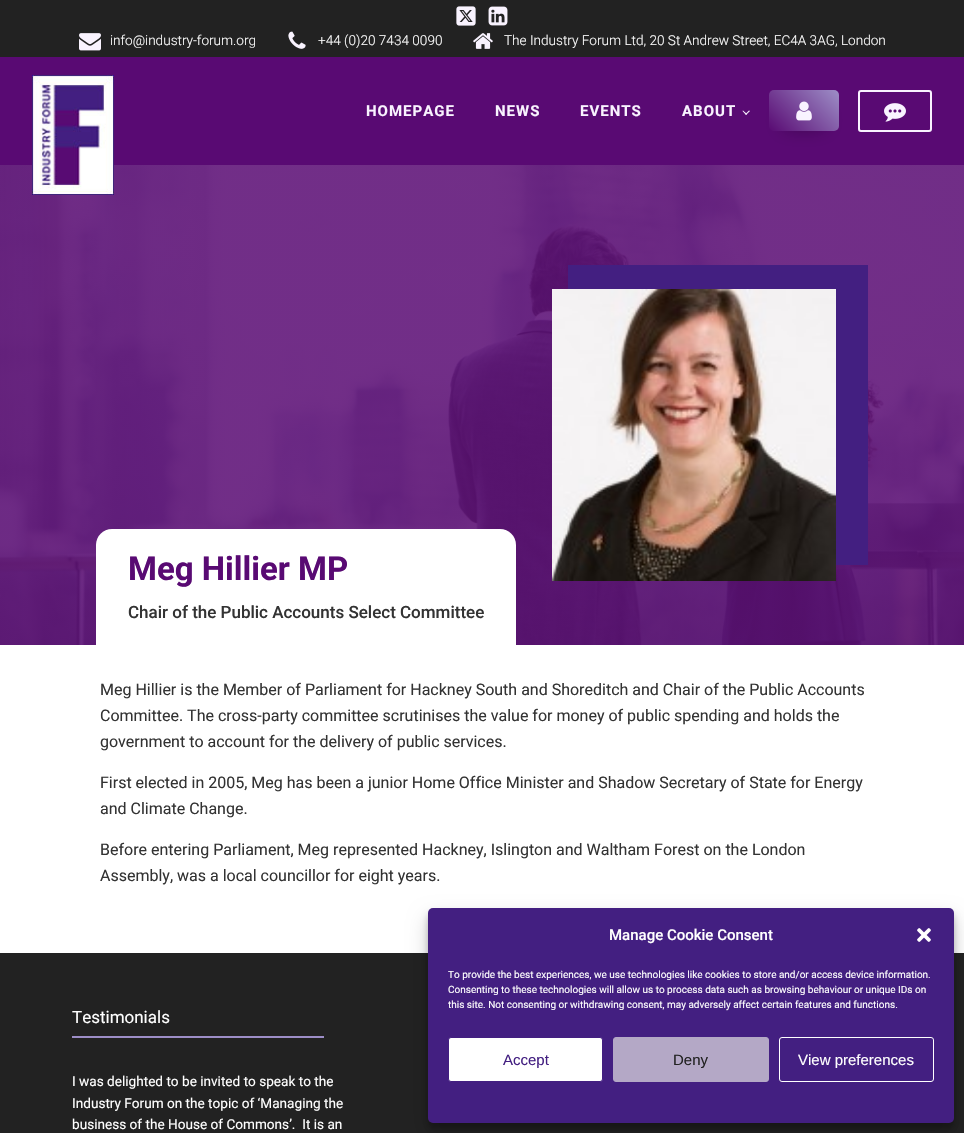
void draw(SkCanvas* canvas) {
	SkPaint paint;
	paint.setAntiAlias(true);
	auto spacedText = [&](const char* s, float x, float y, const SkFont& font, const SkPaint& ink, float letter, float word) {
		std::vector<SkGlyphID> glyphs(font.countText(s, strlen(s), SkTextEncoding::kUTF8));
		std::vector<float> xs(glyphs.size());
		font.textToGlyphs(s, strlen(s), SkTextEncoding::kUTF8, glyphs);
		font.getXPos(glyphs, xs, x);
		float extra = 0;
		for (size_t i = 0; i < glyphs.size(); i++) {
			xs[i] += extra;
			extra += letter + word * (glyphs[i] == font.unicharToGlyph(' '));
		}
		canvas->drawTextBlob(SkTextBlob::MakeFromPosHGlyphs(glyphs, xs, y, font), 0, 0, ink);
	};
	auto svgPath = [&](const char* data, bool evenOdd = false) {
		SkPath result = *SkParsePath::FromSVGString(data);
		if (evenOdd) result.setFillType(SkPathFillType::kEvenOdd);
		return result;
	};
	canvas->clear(0xffffffff);
	paint.setColor(0xff222222);
	canvas->drawRect(SkRect::MakeXYWH(0, 0, 964, 57), paint);
	canvas->drawImageRect(SkImages::DeferredFromEncodedData(SkData::MakeFromFileName("img1.png")), SkRect::MakeXYWH(456, 6, 20, 20), SkSamplingOptions());
	canvas->drawImageRect(SkImages::DeferredFromEncodedData(SkData::MakeFromFileName("img2.png")), SkRect::MakeXYWH(488, 6, 20, 20), SkSamplingOptions());
	canvas->drawImageRect(SkImages::DeferredFromEncodedData(SkData::MakeFromFileName("img3.png")), SkRect::MakeXYWH(79, 33, 22, 18), SkSamplingOptions());
	SkFont f1(fontMgr->matchFamilyStyle("Roboto", SkFontStyle(300, SkFontStyle::kNormal_Width, SkFontStyle::kUpright_Slant)), 13.6);
	f1.setSubpixel(true);
	paint.setColor(0xffffffff);
	canvas->drawString("info@industry-forum.org", 110, 45, f1, paint);
	canvas->drawImageRect(SkImages::DeferredFromEncodedData(SkData::MakeFromFileName("img4.png")), SkRect::MakeXYWH(288, 31, 18, 18), SkSamplingOptions());
	canvas->drawString("+44 (0)20 7434 0090", 318, 45, f1, paint);
	canvas->drawImageRect(SkImages::DeferredFromEncodedData(SkData::MakeFromFileName("img5.png")), SkRect::MakeXYWH(473, 33, 20, 16), SkSamplingOptions());
	canvas->drawString("The Industry Forum Ltd, 20 St Andrew Street, EC4A 3AG, London", 504, 45, f1, paint);
	paint.setColor(0xff590a73);
	canvas->drawRect(SkRect::MakeXYWH(0, 57, 964, 108), paint);
	canvas->drawImageRect(SkImages::DeferredFromEncodedData(SkData::MakeFromFileName("img9.png")), SkRect::MakeXYWH(0, 165, 964, 480), SkSamplingOptions());
	canvas->drawImageRect(SkImages::DeferredFromEncodedData(SkData::MakeFromFileName("img6.png")), SkRect::MakeXYWH(32, 75, 82, 120), SkSamplingOptions());
	SkFont f2(fontMgr->matchFamilyStyle("Roboto", SkFontStyle::Bold()), 15);
	f2.setSubpixel(true);
	paint.setColor(0xfff9f3ff);
	spacedText("HOMEPAGE", 366, 116, f2, paint, 1, 0);
	spacedText("NEWS", 495, 116, f2, paint, 1, 0);
	spacedText("EVENTS", 580, 116, f2, paint, 1, 0);
	spacedText("ABOUT", 682, 116, f2, paint, 1, 0);
	canvas->drawPath(svgPath("M750 111L746 115L745.5 114L749 110.5Z"), paint);
	canvas->drawPath(svgPath("M747 114L746 115L742.5 111L743 110.5Z"), paint);
	paint.setColor(0x80000000);
	paint.setMaskFilter(SkMaskFilter::MakeBlur(kNormal_SkBlurStyle, 10));
	canvas->drawRect(SkRect::MakeXYWH(784, 115, 40, 11), paint);
	paint.setMaskFilter(nullptr);
	{
		const SkColor colors[] = {0xff590a73, 0xff9d8ec7};
		const float stops[] = {0, 1};
		const SkPoint ends[] = {{776, 138}, {832, 83}};
		paint.setShader(SkGradientShader::MakeLinear(ends, colors, stops, 2, SkTileMode::kClamp));
		paint.setAlpha(255);
	}
	canvas->drawRoundRect(SkRect::MakeXYWH(769, 90, 70, 41), 5, 5, paint);
	canvas->drawImageRect(SkImages::DeferredFromEncodedData(SkData::MakeFromFileName("img7.png")), SkRect::MakeXYWH(796, 101, 16, 20), SkSamplingOptions());
	paint.setStroke(true);
	paint.setStrokeWidth(2);
	paint.setShader(nullptr);
	paint.setColor(0xfff9f3ff);
	canvas->drawRoundRect(SkRect::MakeXYWH(859, 91, 72, 40), 2, 2, paint);
	canvas->drawImageRect(SkImages::DeferredFromEncodedData(SkData::MakeFromFileName("img8.png")), SkRect::MakeXYWH(884, 103, 22, 19), SkSamplingOptions());
	paint.setStroke(false);
	paint.setColor(0xffffffff);
	canvas->drawPath(svgPath("M112 529H500C509 529 516 536 516 545V645H96V545C96 536 103 529 112 529Z"), paint);
	SkFont f3(fontMgr->matchFamilyStyle("Roboto", SkFontStyle::Bold()), 33);
	f3.setSubpixel(true);
	paint.setColor(0xff590a73);
	canvas->drawString("Meg Hillier MP", 128, 580, f3, paint);
	SkFont f4(fontMgr->matchFamilyStyle("Roboto", SkFontStyle(500, SkFontStyle::kNormal_Width, SkFontStyle::kUpright_Slant)), 17);
	f4.setSubpixel(true);
	paint.setColor(0xff333333);
	canvas->drawString("Chair of the Public Accounts Select Committee", 128, 618, f4, paint);
	paint.setColor(0xff431f81);
	canvas->drawRect(SkRect::MakeXYWH(568, 265, 300, 300), paint);
	canvas->drawImageRect(SkImages::DeferredFromEncodedData(SkData::MakeFromFileName("img10.png")), SkRect::MakeXYWH(552, 289, 284, 292), SkSamplingOptions());
	SkFont f5(fontMgr->matchFamilyStyle("Roboto", SkFontStyle::Normal()), 16);
	f5.setSubpixel(true);
	paint.setColor(0xff333333);
	canvas->drawString("Meg Hillier is the Member of Parliament for Hackney South and Shoreditch and Chair of the Public Accounts", 100, 695, f5, paint);
	canvas->drawString("Committee. The cross-party committee scrutinises the value for money of public spending and holds the", 100, 721, f5, paint);
	canvas->drawString("government to account for the delivery of public services.", 100, 747, f5, paint);
	canvas->drawString("First elected in 2005, Meg has been a junior Home Office Minister and Shadow Secretary of State for Energy", 100, 788, f5, paint);
	canvas->drawString("and Climate Change.", 100, 814, f5, paint);
	canvas->drawString("Before entering Parliament, Meg represented Hackney, Islington and Waltham Forest on the London", 100, 855, f5, paint);
	canvas->drawString("Assembly, was a local councillor for eight years.", 100, 881, f5, paint);
	paint.setColor(0xff222222);
	canvas->drawRect(SkRect::MakeXYWH(0, 953, 964, 180), paint);
	paint.setColor(0xff9d8ec7);
	canvas->drawRect(SkRect::MakeXYWH(72, 1036, 252, 2), paint);
	SkFont f6(fontMgr->matchFamilyStyle("Roboto", SkFontStyle::Normal()), 17);
	f6.setSubpixel(true);
	paint.setColor(0xffffffff);
	canvas->drawString("Testimonials", 72, 1023, f6, paint);
	SkFont f7(fontMgr->matchFamilyStyle("Roboto", SkFontStyle::Normal()), 13.6);
	f7.setSubpixel(true);
	canvas->drawString("I was delighted to be invited to speak to the", 72, 1086, f7, paint);
	canvas->drawString("Industry Forum on the topic of ‘Managing the", 72, 1108, f7, paint);
	canvas->drawString("business of the House of Commons’.  It is an", 72, 1129, f7, paint);
	paint.setColor(0x3b000000);
	paint.setMaskFilter(SkMaskFilter::MakeBlur(kNormal_SkBlurStyle, 3));
	canvas->drawRoundRect(SkRect::MakeXYWH(428, 914, 526, 215), 5, 5, paint);
	paint.setMaskFilter(nullptr);
	paint.setColor(0x30000000);
	paint.setMaskFilter(SkMaskFilter::MakeBlur(kNormal_SkBlurStyle, 10));
	canvas->drawRoundRect(SkRect::MakeXYWH(428, 918, 526, 215), 5, 5, paint);
	paint.setMaskFilter(nullptr);
	paint.setColor(0xff431f81);
	canvas->drawRoundRect(SkRect::MakeXYWH(428, 908, 526, 215), 5, 5, paint);
	SkFont f8(fontMgr->matchFamilyStyle("Roboto", SkFontStyle(500, SkFontStyle::kNormal_Width, SkFontStyle::kUpright_Slant)), 15);
	f8.setSubpixel(true);
	paint.setColor(0xffffffff);
	canvas->drawString("Manage Cookie Consent", 609, 940, f8, paint);
	canvas->drawImageRect(SkImages::DeferredFromEncodedData(SkData::MakeFromFileName("img11.png")), SkRect::MakeXYWH(917, 928, 14, 14), SkSamplingOptions());
	SkFont f9(fontMgr->matchFamilyStyle("Roboto", SkFontStyle::Normal()), 10);
	f9.setSubpixel(true);
	canvas->drawString("To provide the best experiences, we use technologies like cookies to store and/or access device information.", 448, 978, f9, paint);
	canvas->drawString("Consenting to these technologies will allow us to process data such as browsing behaviour or unique IDs on", 448, 993, f9, paint);
	canvas->drawString("this site. Not consenting or withdrawing consent, may adversely affect certain features and functions.", 448, 1008, f9, paint);
	canvas->drawRoundRect(SkRect::MakeXYWH(448.5, 1037.5, 154, 44), 2.5, 2.5, paint);
	paint.setStroke(true);
	paint.setStrokeWidth(1);
	paint.setColor(0xff431f81);
	canvas->drawRoundRect(SkRect::MakeXYWH(448.5, 1037.5, 154, 44), 2.5, 2.5, paint);
	SkFont f10(fontMgr->matchFamilyStyle("Liberation Sans", SkFontStyle::Normal()), 15);
	f10.setSubpixel(true);
	paint.setStroke(false);
	canvas->drawString("Accept", 503, 1065, f10, paint);
	paint.setColor(0xffb4a8c6);
	canvas->drawRoundRect(SkRect::MakeXYWH(613.5, 1037.5, 155, 44), 2.5, 2.5, paint);
	paint.setStroke(true);
	canvas->drawRoundRect(SkRect::MakeXYWH(613.5, 1037.5, 155, 44), 2.5, 2.5, paint);
	paint.setStroke(false);
	paint.setColor(0xff222222);
	canvas->drawString("Deny", 673, 1065, f10, paint);
	paint.setStroke(true);
	paint.setColor(0xffffffff);
	canvas->drawRoundRect(SkRect::MakeXYWH(779.5, 1037.5, 154, 44), 2.5, 2.5, paint);
	paint.setStroke(false);
	canvas->drawString("View preferences", 798, 1065, f10, paint);
}
